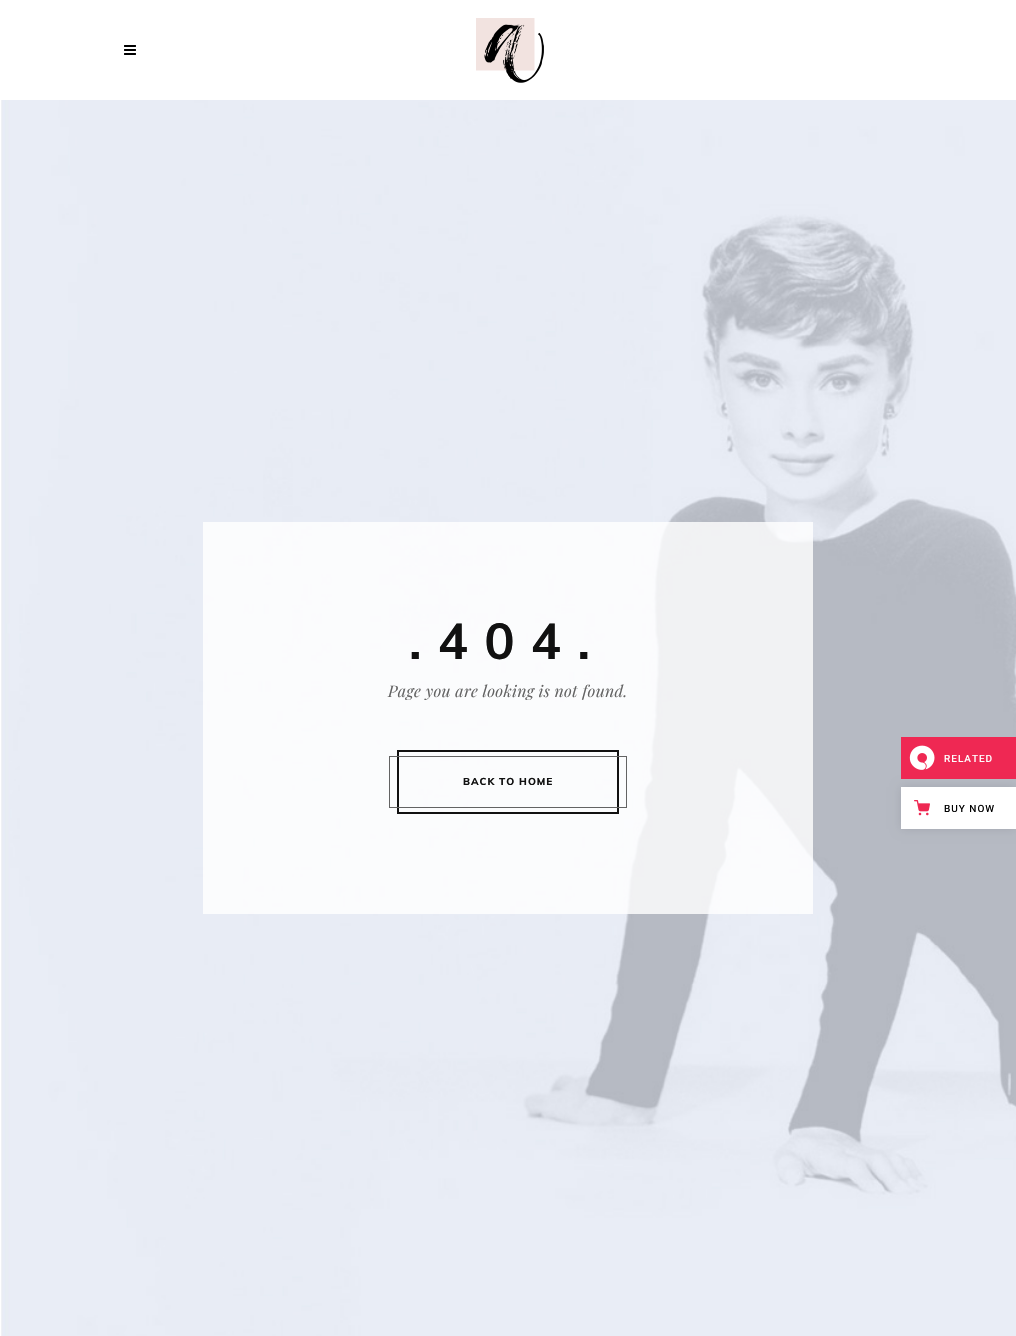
void draw(SkCanvas* canvas) {
	SkPaint paint;
	paint.setAntiAlias(true);
	auto spacedText = [&](const char* s, float x, float y, const SkFont& font, const SkPaint& ink, float letter, float word) {
		std::vector<SkGlyphID> glyphs(font.countText(s, strlen(s), SkTextEncoding::kUTF8));
		std::vector<float> xs(glyphs.size());
		font.textToGlyphs(s, strlen(s), SkTextEncoding::kUTF8, glyphs);
		font.getXPos(glyphs, xs, x);
		float extra = 0;
		for (size_t i = 0; i < glyphs.size(); i++) {
			xs[i] += extra;
			extra += letter + word * (glyphs[i] == font.unicharToGlyph(' '));
		}
		canvas->drawTextBlob(SkTextBlob::MakeFromPosHGlyphs(glyphs, xs, y, font), 0, 0, ink);
	};
	canvas->clear(0xffffffff);
	canvas->drawImageRect(SkImages::DeferredFromEncodedData(SkData::MakeFromFileName("img1.png")), SkRect::MakeXYWH(124, 45, 12, 10), SkSamplingOptions());
	canvas->drawImageRect(SkImages::DeferredFromEncodedData(SkData::MakeFromFileName("img2.png")), SkRect::MakeXYWH(476, 18, 68, 65), SkSamplingOptions());
	canvas->drawImageRect(SkImages::DeferredFromEncodedData(SkData::MakeFromFileName("img3.png")), SkRect::MakeXYWH(1, 100, 1015, 1236), SkSamplingOptions());
	paint.setColor(0xccffffff);
	canvas->drawRect(SkRect::MakeXYWH(203, 522, 610, 392), paint);
	SkFont f1(fontMgr->matchFamilyStyle("Muli", SkFontStyle::Bold()), 50);
	f1.setSubpixel(true);
	paint.setColor(0xff111111);
	spacedText(".404.", 409, 659, f1, paint, 16.5, 0);
	SkFont f2(fontMgr->matchFamilyStyle("Playfair Display", SkFontStyle::Italic()), 16);
	f2.setSubpixel(true);
	paint.setColor(0xff636363);
	spacedText("Page you are looking is not found.", 388, 697, f2, paint, 0.3, 0);
	paint.setStroke(true);
	paint.setStrokeWidth(2);
	paint.setColor(0xff111111);
	canvas->drawRect(SkRect::MakeXYWH(398, 751, 220, 62), paint);
	paint.setStrokeWidth(1);
	paint.setColor(0xff636363);
	canvas->drawRect(SkRect::MakeXYWH(389.5, 756.5, 237, 51), paint);
	SkFont f3(fontMgr->matchFamilyStyle("Muli", SkFontStyle(800, SkFontStyle::kNormal_Width, SkFontStyle::kUpright_Slant)), 10);
	f3.setSubpixel(true);
	paint.setStroke(false);
	paint.setColor(0xff111111);
	spacedText("BACK TO HOME", 463, 785, f3, paint, 1, 0);
	paint.setColor(0xffef2853);
	canvas->drawRect(SkRect::MakeXYWH(901, 737, 115, 42), paint);
	canvas->drawImageRect(SkImages::DeferredFromEncodedData(SkData::MakeFromFileName("img4.png")), SkRect::MakeXYWH(909, 745, 26, 25), SkSamplingOptions());
	SkFont f4(fontMgr->matchFamilyStyle("Heebo", SkFontStyle(500, SkFontStyle::kNormal_Width, SkFontStyle::kUpright_Slant)), 10);
	f4.setSubpixel(true);
	paint.setColor(0xffffffff);
	spacedText("RELATED", 944, 762, f4, paint, 1, 0);
	paint.setColor(0x1a000000);
	paint.setMaskFilter(SkMaskFilter::MakeBlur(kNormal_SkBlurStyle, 5));
	canvas->drawRect(SkRect::MakeXYWH(901, 787, 115, 42), paint);
	paint.setMaskFilter(nullptr);
	paint.setColor(0xffffffff);
	canvas->drawRect(SkRect::MakeXYWH(901, 787, 115, 42), paint);
	canvas->drawImageRect(SkImages::DeferredFromEncodedData(SkData::MakeFromFileName("img5.png")), SkRect::MakeXYWH(914, 800, 16, 16), SkSamplingOptions());
	paint.setColor(0xff000000);
	spacedText("BUY NOW", 944, 812, f4, paint, 1, 0);
}
